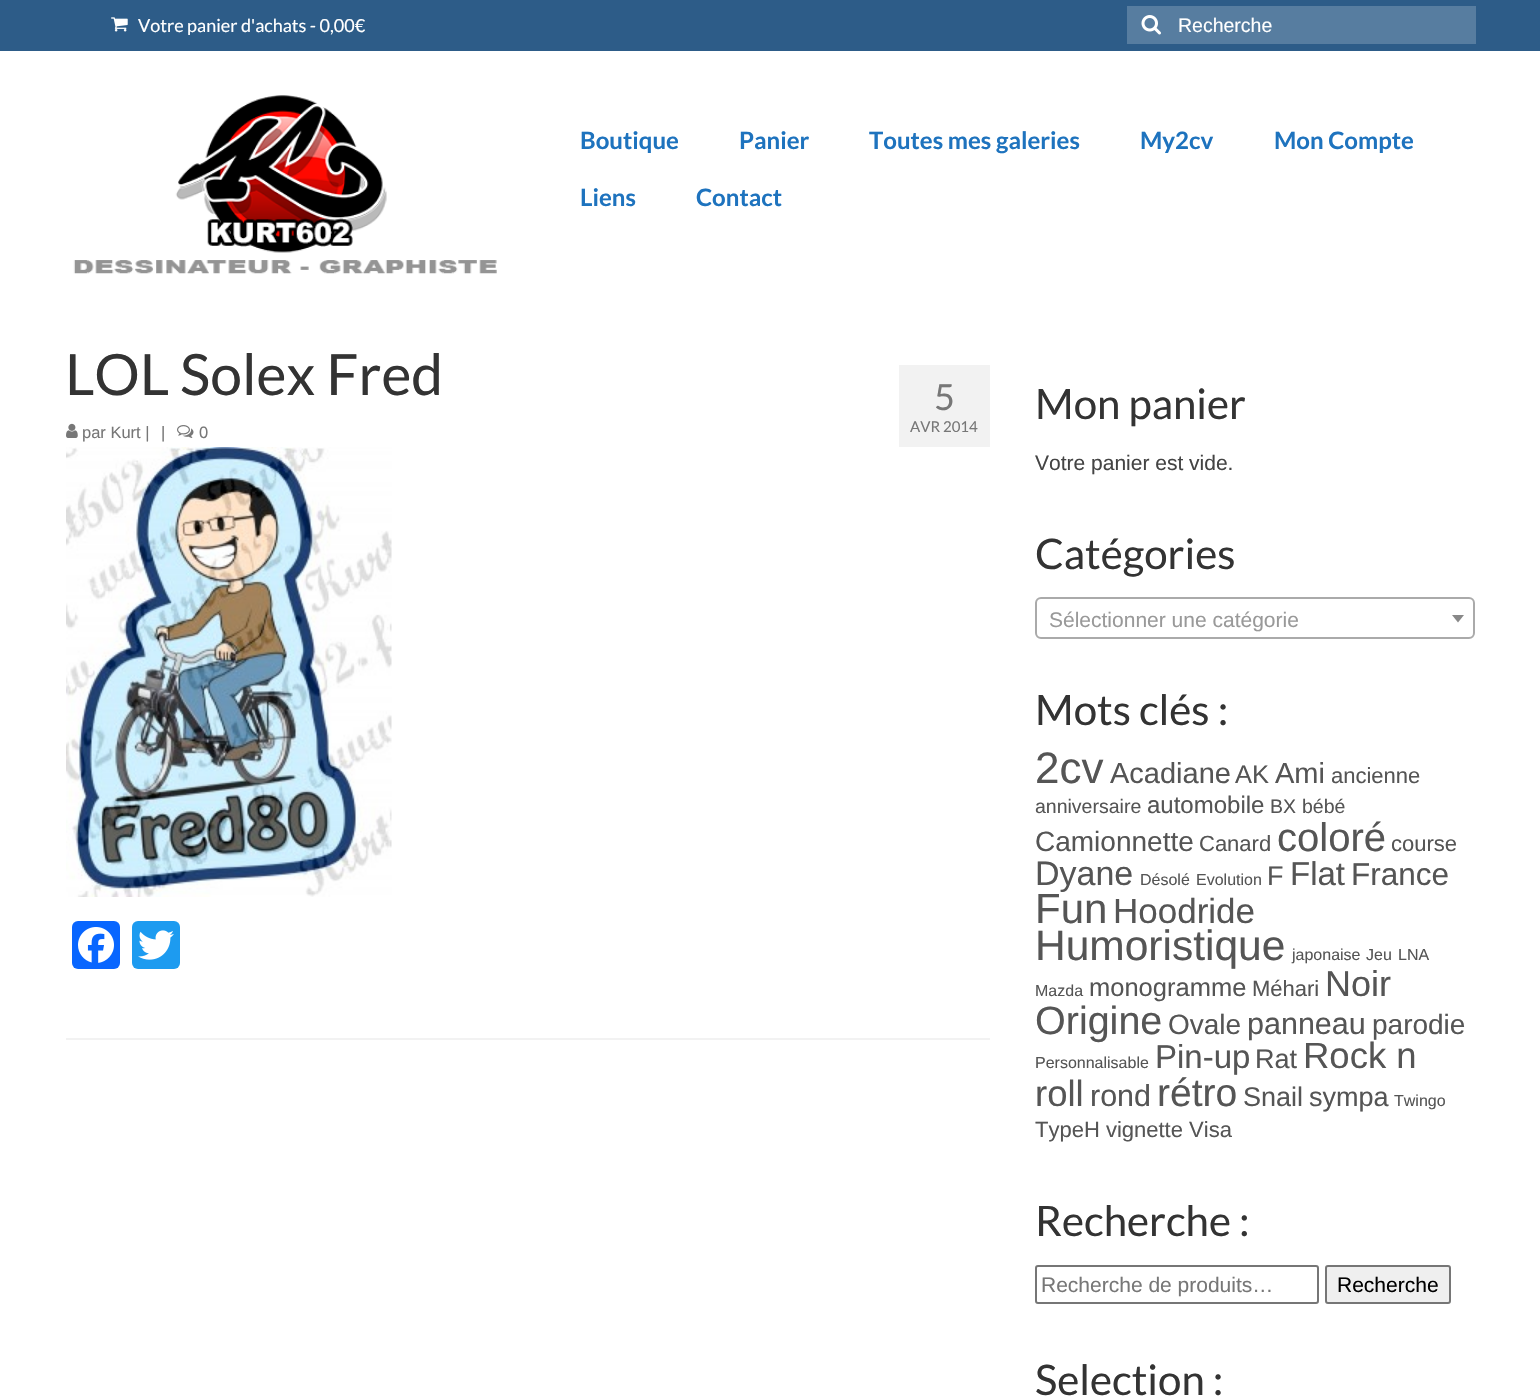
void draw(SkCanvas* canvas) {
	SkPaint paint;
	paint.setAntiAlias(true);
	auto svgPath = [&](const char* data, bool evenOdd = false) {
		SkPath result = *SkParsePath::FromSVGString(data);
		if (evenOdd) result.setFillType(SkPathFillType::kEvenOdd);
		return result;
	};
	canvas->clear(0xffffffff);
	paint.setColor(0xff2d5c88);
	canvas->drawRect(SkRect::MakeXYWH(0, 0, 1540, 51), paint);
	canvas->drawImageRect(SkImages::DeferredFromEncodedData(SkData::MakeFromFileName("img1.png")), SkRect::MakeXYWH(111, 17, 17, 15), SkSamplingOptions());
	SkFont f1(fontMgr->matchFamilyStyle("Lato", SkFontStyle::Normal()), 18);
	f1.setSubpixel(true);
	paint.setColor(0xffffffff);
	canvas->drawString("Votre panier d'achats - 0,00€", 138, 32, f1, paint);
	paint.setColor(0xff577da0);
	canvas->drawRect(SkRect::MakeXYWH(1127, 6, 349, 38), paint);
	canvas->drawImageRect(SkImages::DeferredFromEncodedData(SkData::MakeFromFileName("img2.png")), SkRect::MakeXYWH(1141, 15, 20, 20), SkSamplingOptions());
	SkFont f2(fontMgr->matchFamilyStyle("Liberation Sans", SkFontStyle::Normal()), 19.5);
	f2.setSubpixel(true);
	paint.setColor(0xffffffff);
	canvas->drawString("Recherche", 1178, 32, f2, paint);
	canvas->drawImageRect(SkImages::DeferredFromEncodedData(SkData::MakeFromFileName("img3.png")), SkRect::MakeXYWH(73, 95, 424, 179), SkSamplingOptions());
	SkFont f3(fontMgr->matchFamilyStyle("Lato", SkFontStyle::Bold()), 24);
	f3.setSubpixel(true);
	paint.setColor(0xff1e73be);
	canvas->drawString("Boutique", 580, 149, f3, paint);
	canvas->drawString("Panier", 739, 149, f3, paint);
	canvas->drawString("Toutes mes galeries", 869, 149, f3, paint);
	canvas->drawString("My2cv", 1140, 149, f3, paint);
	canvas->drawString("Mon Compte", 1274, 149, f3, paint);
	canvas->drawString("Liens", 580, 206, f3, paint);
	canvas->drawString("Contact", 696, 206, f3, paint);
	SkFont f4(fontMgr->matchFamilyStyle("Lato", SkFontStyle::Normal()), 57);
	f4.setSubpixel(true);
	paint.setColor(0xff333333);
	canvas->drawString("LOL Solex Fred", 65, 395, f4, paint);
	canvas->drawImageRect(SkImages::DeferredFromEncodedData(SkData::MakeFromFileName("img4.png")), SkRect::MakeXYWH(66, 423, 12, 15), SkSamplingOptions());
	SkFont f5(fontMgr->matchFamilyStyle("Liberation Sans", SkFontStyle::Normal()), 16.5);
	f5.setSubpixel(true);
	paint.setColor(0xff777777);
	canvas->drawString("par Kurt |", 82, 438, f5, paint);
	canvas->drawString("|", 161, 438, f5, paint);
	canvas->drawImageRect(SkImages::DeferredFromEncodedData(SkData::MakeFromFileName("img5.png")), SkRect::MakeXYWH(177, 425, 17, 13), SkSamplingOptions());
	canvas->drawString("0", 199, 438, f5, paint);
	paint.setColor(0xfff2f2f2);
	canvas->drawRect(SkRect::MakeXYWH(899, 365, 91, 82), paint);
	SkFont f6(fontMgr->matchFamilyStyle("Lato", SkFontStyle::Normal()), 36);
	f6.setSubpixel(true);
	paint.setColor(0xff777777);
	canvas->drawString("5", 934, 410, f6, paint);
	SkFont f7(fontMgr->matchFamilyStyle("Lato", SkFontStyle::Normal()), 15);
	f7.setSubpixel(true);
	canvas->drawString("AVR 2014", 910, 432, f7, paint);
	canvas->drawImageRect(SkImages::DeferredFromEncodedData(SkData::MakeFromFileName("img6.png")), SkRect::MakeXYWH(66, 447, 326, 450), SkSamplingOptions());
	paint.setColor(0xff0866ff);
	canvas->drawRoundRect(SkRect::MakeXYWH(72, 921, 48, 48), 6, 6, paint);
	canvas->drawImageRect(SkImages::DeferredFromEncodedData(SkData::MakeFromFileName("img7.png")), SkRect::MakeXYWH(78, 927, 36, 36), SkSamplingOptions());
	paint.setColor(0xff1d9bf0);
	canvas->drawRoundRect(SkRect::MakeXYWH(132, 921, 48, 48), 6, 6, paint);
	canvas->drawImageRect(SkImages::DeferredFromEncodedData(SkData::MakeFromFileName("img8.png")), SkRect::MakeXYWH(138, 930, 36, 30), SkSamplingOptions());
	paint.setColor(0xfff2f2f2);
	canvas->drawRect(SkRect::MakeXYWH(66, 1038, 924, 2), paint);
	SkFont f8(fontMgr->matchFamilyStyle("Lato", SkFontStyle::Normal()), 42);
	f8.setSubpixel(true);
	paint.setColor(0xff333333);
	canvas->drawString("Mon panier", 1035, 419, f8, paint);
	SkFont f9(fontMgr->matchFamilyStyle("Liberation Sans", SkFontStyle::Normal()), 21);
	f9.setSubpixel(true);
	paint.setColor(0xff444444);
	canvas->drawString("Votre panier est vide.", 1035, 470, f9, paint);
	paint.setColor(0xff333333);
	canvas->drawString("Catégories", 1035, 569, f8, paint);
	paint.setStroke(true);
	paint.setStrokeWidth(2);
	paint.setColor(0xffaaaaaa);
	canvas->drawRoundRect(SkRect::MakeXYWH(1036, 598, 438, 40), 5, 5, paint);
	paint.setStroke(false);
	paint.setColor(0xff999999);
	canvas->drawString("Sélectionner une catégorie", 1049, 627, f9, paint);
	paint.setColor(0xff888888);
	canvas->drawPath(svgPath("M1452 615H1464L1458 622.5Z"), paint);
	paint.setColor(0xff333333);
	canvas->drawString("Mots clés :", 1035, 725, f8, paint);
	SkFont f10(fontMgr->matchFamilyStyle("Liberation Sans", SkFontStyle::Normal()), 44);
	f10.setSubpixel(true);
	paint.setColor(0xff555555);
	canvas->drawString("2cv", 1035, 783, f10, paint);
	SkFont f11(fontMgr->matchFamilyStyle("Liberation Sans", SkFontStyle::Normal()), 29);
	f11.setSubpixel(true);
	canvas->drawString("Acadiane", 1110, 783, f11, paint);
	SkFont f12(fontMgr->matchFamilyStyle("Liberation Sans", SkFontStyle::Normal()), 25.5);
	f12.setSubpixel(true);
	canvas->drawString("AK", 1235, 783, f12, paint);
	canvas->drawString("Ami", 1275, 783, f11, paint);
	SkFont f13(fontMgr->matchFamilyStyle("Liberation Sans", SkFontStyle::Normal()), 22);
	f13.setSubpixel(true);
	canvas->drawString("ancienne", 1331, 783, f13, paint);
	canvas->drawString("anniversaire", 1035, 813, f2, paint);
	SkFont f14(fontMgr->matchFamilyStyle("Liberation Sans", SkFontStyle::Normal()), 24);
	f14.setSubpixel(true);
	canvas->drawString("automobile", 1147, 813, f14, paint);
	canvas->drawString("BX", 1270, 813, f2, paint);
	canvas->drawString("bébé", 1302, 813, f2, paint);
	SkFont f15(fontMgr->matchFamilyStyle("Liberation Sans", SkFontStyle::Normal()), 28);
	f15.setSubpixel(true);
	canvas->drawString("Camionnette", 1035, 851, f15, paint);
	canvas->drawString("Canard", 1199, 851, f13, paint);
	SkFont f16(fontMgr->matchFamilyStyle("Liberation Sans", SkFontStyle::Normal()), 40);
	f16.setSubpixel(true);
	canvas->drawString("coloré", 1277, 851, f16, paint);
	canvas->drawString("course", 1391, 851, f13, paint);
	SkFont f17(fontMgr->matchFamilyStyle("Liberation Sans", SkFontStyle::Normal()), 34);
	f17.setSubpixel(true);
	canvas->drawString("Dyane", 1035, 885, f17, paint);
	SkFont f18(fontMgr->matchFamilyStyle("Liberation Sans", SkFontStyle::Normal()), 16);
	f18.setSubpixel(true);
	canvas->drawString("Désolé", 1140, 885, f18, paint);
	canvas->drawString("Evolution", 1196, 885, f18, paint);
	SkFont f19(fontMgr->matchFamilyStyle("Liberation Sans", SkFontStyle::Normal()), 27);
	f19.setSubpixel(true);
	canvas->drawString("F", 1267, 885, f19, paint);
	SkFont f20(fontMgr->matchFamilyStyle("Liberation Sans", SkFontStyle::Normal()), 33);
	f20.setSubpixel(true);
	canvas->drawString("Flat", 1290, 885, f20, paint);
	SkFont f21(fontMgr->matchFamilyStyle("Liberation Sans", SkFontStyle::Normal()), 31.5);
	f21.setSubpixel(true);
	canvas->drawString("France", 1351, 885, f21, paint);
	SkFont f22(fontMgr->matchFamilyStyle("Liberation Sans", SkFontStyle::Normal()), 42);
	f22.setSubpixel(true);
	canvas->drawString("Fun", 1035, 923, f22, paint);
	SkFont f23(fontMgr->matchFamilyStyle("Liberation Sans", SkFontStyle::Normal()), 35);
	f23.setSubpixel(true);
	canvas->drawString("Hoodride", 1113, 923, f23, paint);
	SkFont f24(fontMgr->matchFamilyStyle("Liberation Sans", SkFontStyle::Normal()), 42.5);
	f24.setSubpixel(true);
	canvas->drawString("Humoristique", 1035, 960, f24, paint);
	canvas->drawString("japonaise", 1292, 960, f18, paint);
	canvas->drawString("Jeu", 1366, 960, f18, paint);
	canvas->drawString("LNA", 1398, 960, f18, paint);
	canvas->drawString("Mazda", 1035, 996, f18, paint);
	canvas->drawString("monogramme", 1089, 996, f12, paint);
	canvas->drawString("Méhari", 1252, 996, f13, paint);
	SkFont f25(fontMgr->matchFamilyStyle("Liberation Sans", SkFontStyle::Normal()), 36);
	f25.setSubpixel(true);
	canvas->drawString("Noir", 1325, 996, f25, paint);
	SkFont f26(fontMgr->matchFamilyStyle("Liberation Sans", SkFontStyle::Normal()), 39.5);
	f26.setSubpixel(true);
	canvas->drawString("Origine", 1035, 1034, f26, paint);
	canvas->drawString("Ovale", 1168, 1034, f15, paint);
	SkFont f27(fontMgr->matchFamilyStyle("Liberation Sans", SkFontStyle::Normal()), 30.5);
	f27.setSubpixel(true);
	canvas->drawString("panneau", 1247, 1034, f27, paint);
	canvas->drawString("parodie", 1372, 1034, f15, paint);
	canvas->drawString("Personnalisable", 1035, 1068, f18, paint);
	canvas->drawString("Pin-up", 1155, 1068, f20, paint);
	canvas->drawString("Rat", 1255, 1068, f19, paint);
	SkFont f28(fontMgr->matchFamilyStyle("Liberation Sans", SkFontStyle::Normal()), 36.5);
	f28.setSubpixel(true);
	canvas->drawString("Rock n", 1303, 1068, f28, paint);
	canvas->drawString("roll", 1035, 1106, f28, paint);
	canvas->drawString("rond", 1090, 1106, f27, paint);
	SkFont f29(fontMgr->matchFamilyStyle("Liberation Sans", SkFontStyle::Normal()), 39);
	f29.setSubpixel(true);
	canvas->drawString("rétro", 1157, 1106, f29, paint);
	canvas->drawString("Snail", 1243, 1106, f19, paint);
	canvas->drawString("sympa", 1309, 1106, f19, paint);
	canvas->drawString("Twingo", 1394, 1106, f18, paint);
	canvas->drawString("TypeH vignette Visa", 1035, 1137, f13, paint);
	paint.setColor(0xff333333);
	canvas->drawString("Recherche :", 1035, 1236, f8, paint);
	paint.setStroke(true);
	paint.setColor(0xff767676);
	canvas->drawRoundRect(SkRect::MakeXYWH(1036, 1266, 282, 37), 2, 2, paint);
	paint.setStroke(false);
	paint.setColor(0xff777777);
	canvas->drawString("Recherche de produits…", 1041, 1292, f9, paint);
	paint.setColor(0xffefefef);
	canvas->drawRoundRect(SkRect::MakeXYWH(1326, 1266, 124, 37), 2, 2, paint);
	paint.setStroke(true);
	paint.setColor(0xff767676);
	canvas->drawRoundRect(SkRect::MakeXYWH(1326, 1266, 124, 37), 2, 2, paint);
	paint.setStroke(false);
	paint.setColor(0xff000000);
	canvas->drawString("Recherche", 1337, 1292, f9, paint);
	paint.setColor(0xff333333);
	canvas->drawString("Selection :", 1035, 1395, f8, paint);
}
